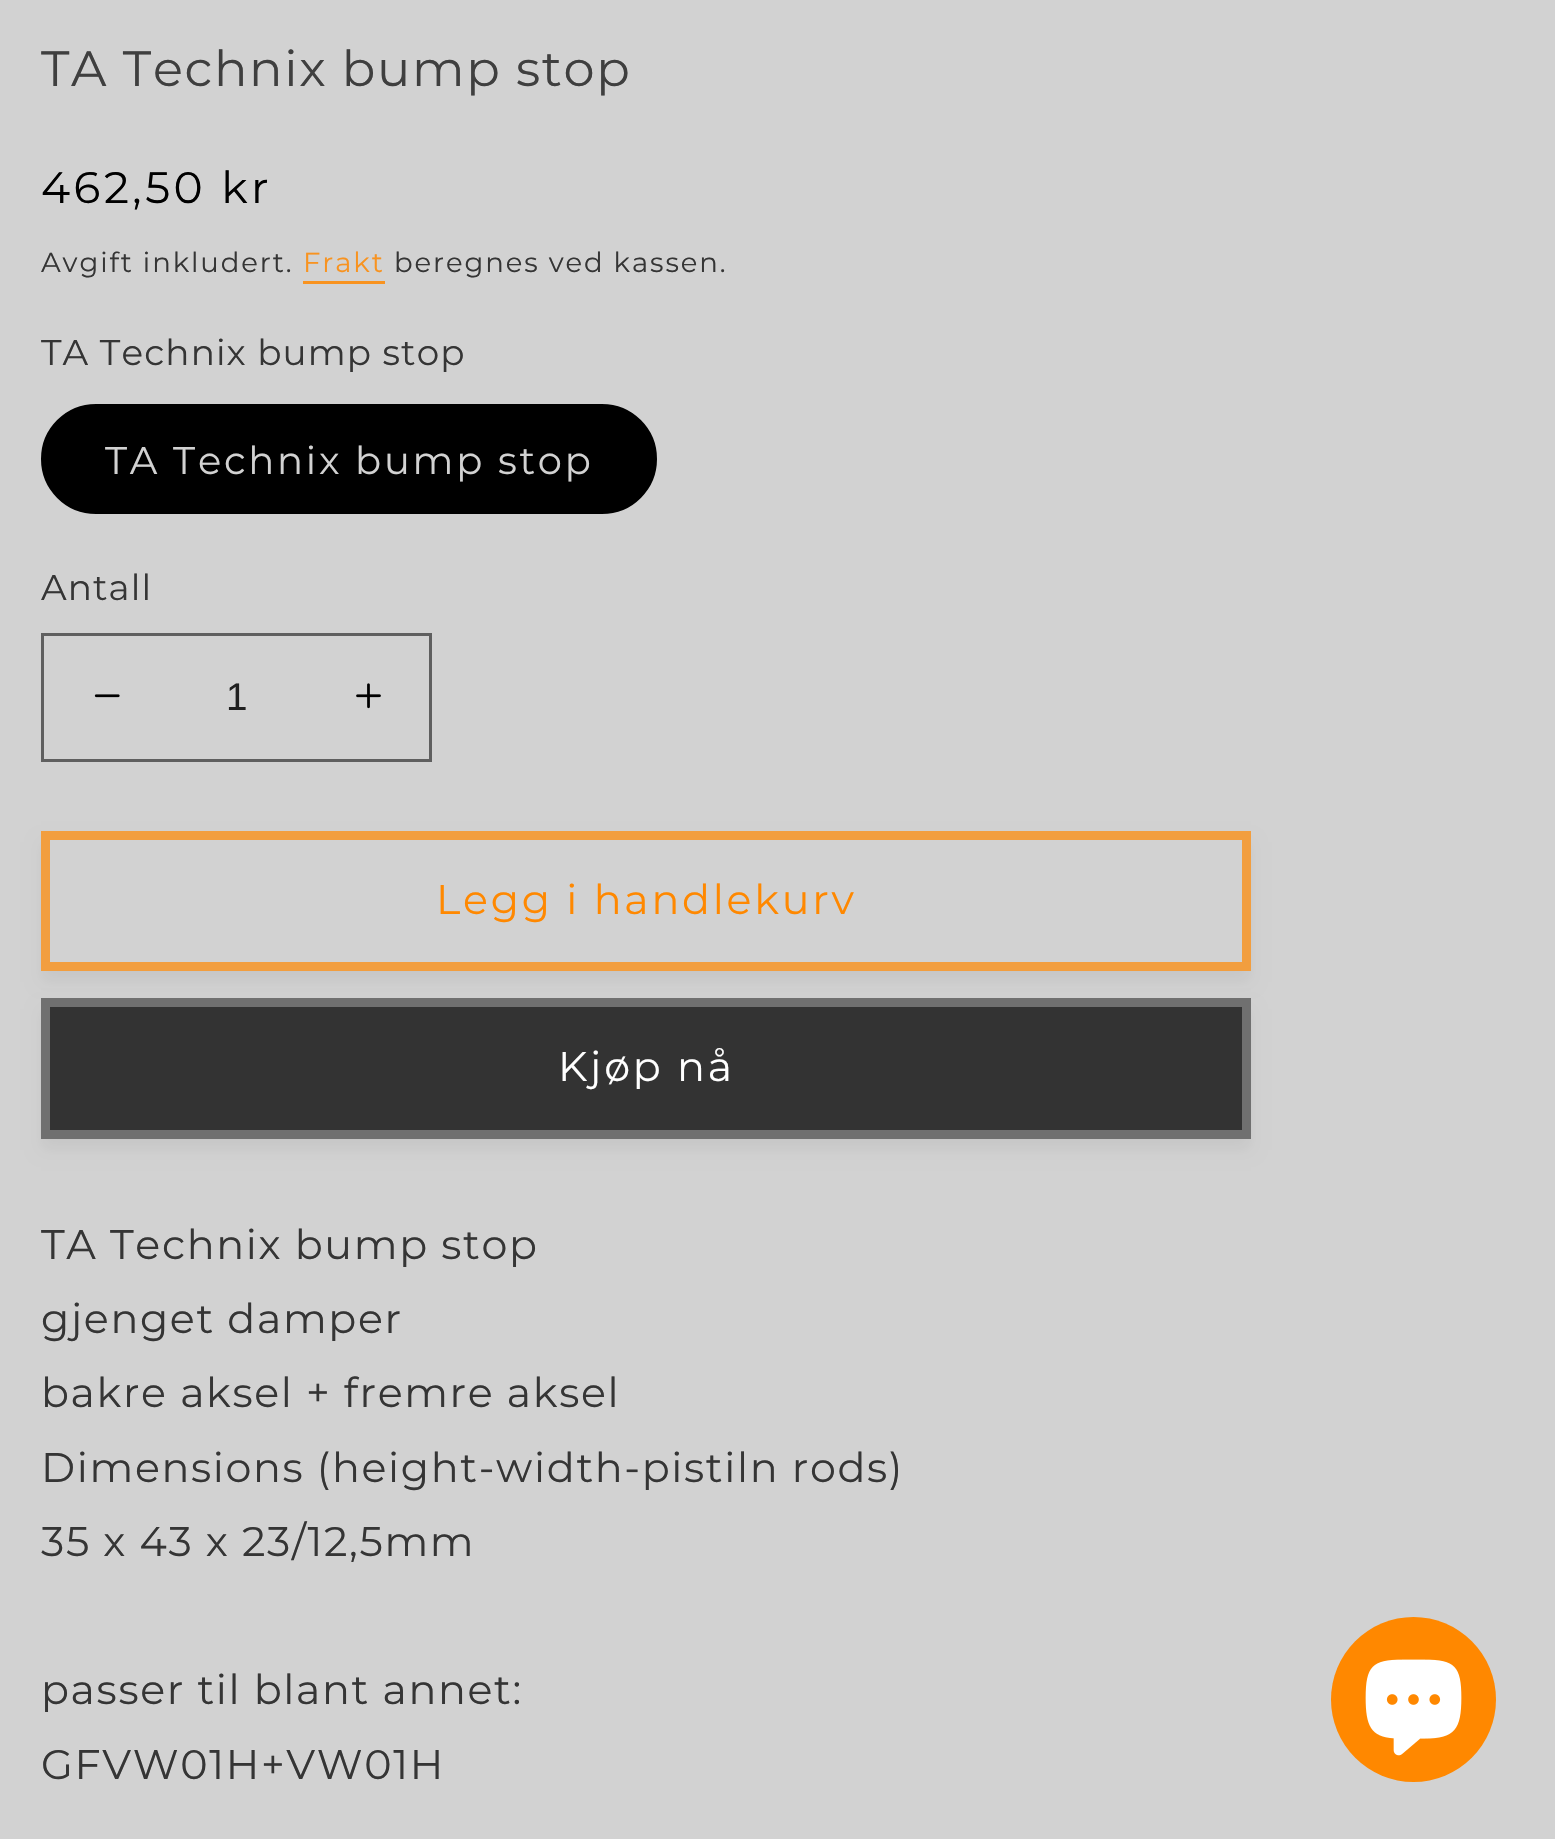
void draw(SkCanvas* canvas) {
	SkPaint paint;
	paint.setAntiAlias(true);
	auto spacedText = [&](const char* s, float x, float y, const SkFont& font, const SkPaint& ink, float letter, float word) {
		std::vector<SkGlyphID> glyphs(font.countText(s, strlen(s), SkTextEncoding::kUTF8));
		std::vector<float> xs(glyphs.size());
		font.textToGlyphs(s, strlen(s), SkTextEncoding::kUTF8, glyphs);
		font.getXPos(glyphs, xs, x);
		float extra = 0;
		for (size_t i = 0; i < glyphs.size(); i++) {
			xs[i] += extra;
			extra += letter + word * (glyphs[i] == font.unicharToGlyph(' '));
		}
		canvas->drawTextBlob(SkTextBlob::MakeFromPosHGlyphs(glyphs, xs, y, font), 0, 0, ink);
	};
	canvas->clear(0xffd2d2d2);
	SkFont f1(fontMgr->matchFamilyStyle("Montserrat", SkFontStyle::Normal()), 49.5);
	f1.setSubpixel(true);
	paint.setColor(0xff3f3f3f);
	spacedText("TA Technix bump stop", 41, 86, f1, paint, 1.65, 0);
	SkFont f2(fontMgr->matchFamilyStyle("Montserrat", SkFontStyle::Normal()), 44);
	f2.setSubpixel(true);
	paint.setColor(0xff000000);
	spacedText("462,50 kr", 41, 203, f2, paint, 3.5, 0);
	SkFont f3(fontMgr->matchFamilyStyle("Montserrat", SkFontStyle::Normal()), 27.5);
	f3.setSubpixel(true);
	paint.setColor(0xff353535);
	spacedText("Avgift inkludert.", 41, 272, f3, paint, 1.9, 0);
	paint.setColor(0xfff89320);
	spacedText("Frakt", 303, 272, f3, paint, 1.9, 0);
	canvas->drawRect(SkRect::MakeXYWH(303, 281, 82, 3), paint);
	paint.setColor(0xff353535);
	spacedText("beregnes ved kassen.", 394, 272, f3, paint, 1.9, 0);
	SkFont f4(fontMgr->matchFamilyStyle("Montserrat", SkFontStyle::Normal()), 35.75);
	f4.setSubpixel(true);
	spacedText("TA Technix bump stop", 41, 365, f4, paint, 1.1, 0);
	paint.setColor(0xff000000);
	canvas->drawRoundRect(SkRect::MakeXYWH(45, 408, 608, 102), 51, 51, paint);
	paint.setStroke(true);
	paint.setStrokeWidth(8);
	canvas->drawRoundRect(SkRect::MakeXYWH(45, 408, 608, 102), 51, 51, paint);
	SkFont f5(fontMgr->matchFamilyStyle("Montserrat", SkFontStyle::Normal()), 38.5);
	f5.setSubpixel(true);
	paint.setStroke(false);
	paint.setColor(0xffd2d2d2);
	spacedText("TA Technix bump stop", 105, 474, f5, paint, 2.75, 0);
	paint.setColor(0xff353535);
	spacedText("Antall", 41, 600, f4, paint, 1.1, 0);
	canvas->drawImageRect(SkImages::DeferredFromEncodedData(SkData::MakeFromFileName("img1.png")), SkRect::MakeXYWH(94, 694, 26, 4), SkSamplingOptions());
	canvas->drawImageRect(SkImages::DeferredFromEncodedData(SkData::MakeFromFileName("img2.png")), SkRect::MakeXYWH(356, 683, 25, 26), SkSamplingOptions());
	paint.setStroke(true);
	paint.setStrokeWidth(3);
	paint.setColor(0xff5f5f5f);
	canvas->drawRect(SkRect::MakeXYWH(42.5, 634.5, 388, 126), paint);
	SkFont f6(fontMgr->matchFamilyStyle("Liberation Sans", SkFontStyle::Normal()), 38.5);
	f6.setSubpixel(true);
	paint.setStroke(false);
	paint.setColor(0xff202020);
	canvas->drawString("1", 226, 710, f6, paint);
	paint.setColor(0x0d000000);
	paint.setMaskFilter(SkMaskFilter::MakeBlur(kNormal_SkBlurStyle, 7));
	canvas->drawRect(SkRect::MakeXYWH(41, 842, 1210, 140), paint);
	paint.setMaskFilter(nullptr);
	paint.setColor(0xffd2d2d2);
	canvas->drawRect(SkRect::MakeXYWH(50, 840, 1192, 122), paint);
	paint.setStroke(true);
	paint.setStrokeWidth(9);
	paint.setColor(0xfff29e3f);
	canvas->drawRect(SkRect::MakeXYWH(45.5, 835.5, 1201, 131), paint);
	SkFont f7(fontMgr->matchFamilyStyle("Montserrat", SkFontStyle::Normal()), 41.25);
	f7.setSubpixel(true);
	paint.setStroke(false);
	paint.setColor(0xffff8800);
	spacedText("Legg i handlekurv", 436, 914, f7, paint, 2.75, 0);
	paint.setColor(0x0d000000);
	paint.setMaskFilter(SkMaskFilter::MakeBlur(kNormal_SkBlurStyle, 7));
	canvas->drawRect(SkRect::MakeXYWH(41, 1009, 1210, 141), paint);
	paint.setMaskFilter(nullptr);
	paint.setColor(0xff333333);
	canvas->drawRect(SkRect::MakeXYWH(50, 1007, 1192, 123), paint);
	paint.setStroke(true);
	paint.setColor(0xff707070);
	canvas->drawRect(SkRect::MakeXYWH(45.5, 1002.5, 1201, 132), paint);
	paint.setStroke(false);
	paint.setColor(0xffffffff);
	spacedText("Kjøp nå", 558, 1081, f7, paint, 2.75, 0);
	paint.setColor(0xff353535);
	spacedText("TA Technix bump stop", 41, 1259, f7, paint, 1.65, 0);
	spacedText("gjenget damper", 41, 1333, f7, paint, 1.65, 0);
	spacedText("bakre aksel + fremre aksel", 41, 1407, f7, paint, 1.65, 0);
	spacedText("Dimensions (height-width-pistiln rods)", 41, 1482, f7, paint, 1.65, 0);
	spacedText("35 x 43 x 23/12,5mm", 41, 1556, f7, paint, 1.65, 0);
	spacedText("passer til blant annet:", 41, 1704, f7, paint, 1.65, 0);
	spacedText("GFVW01H+VW01H", 41, 1779, f7, paint, 1.65, 0);
	paint.setColor(0xffff8800);
	canvas->drawCircle(1413.5, 1699.5, 82.5, paint);
	canvas->drawImageRect(SkImages::DeferredFromEncodedData(SkData::MakeFromFileName("img3.png")), SkRect::MakeXYWH(1365, 1659, 97, 97), SkSamplingOptions());
}
